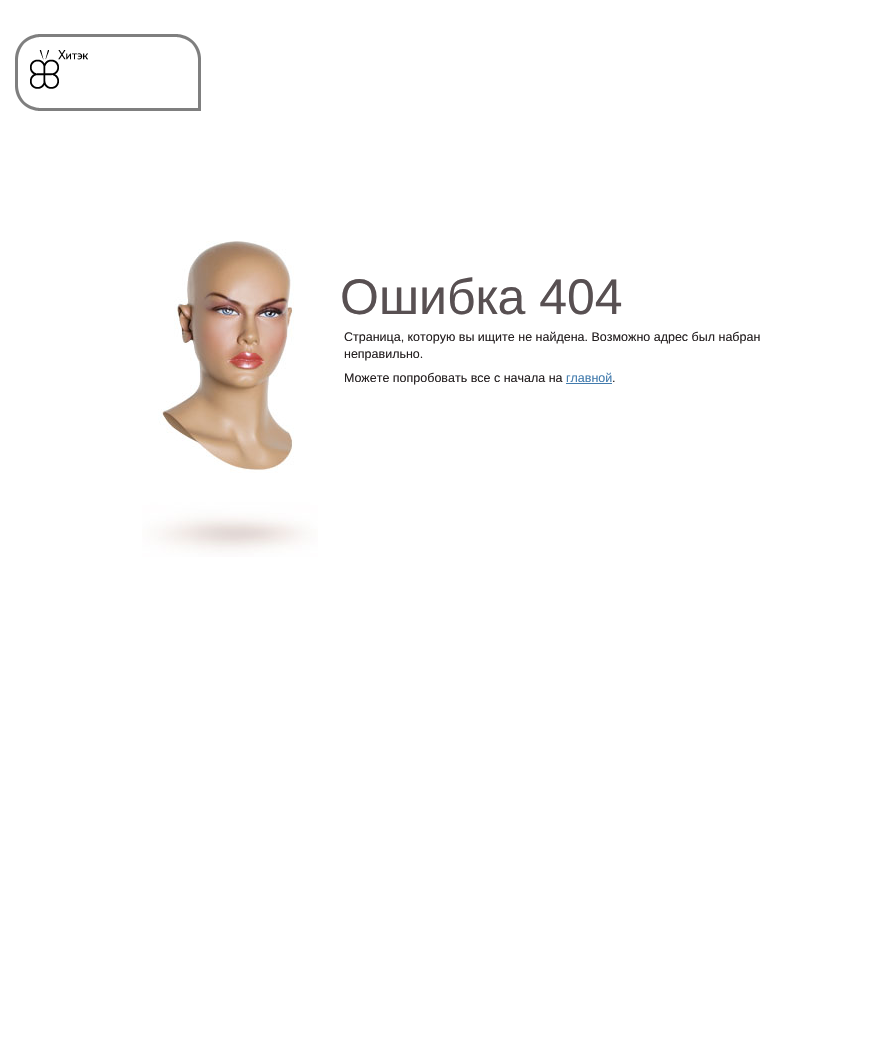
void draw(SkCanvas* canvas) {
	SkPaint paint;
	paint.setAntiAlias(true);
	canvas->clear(0xffffffff);
	paint.setStroke(true);
	paint.setStrokeWidth(3);
	paint.setColor(0xff7f7f7f);
	canvas->drawRect(SkRect::MakeXYWH(16.5, 35.5, 183, 74), paint);
	canvas->drawImageRect(SkImages::DeferredFromEncodedData(SkData::MakeFromFileName("img1.png")), SkRect::MakeXYWH(30, 50, 58, 39), SkSamplingOptions());
	canvas->drawImageRect(SkImages::DeferredFromEncodedData(SkData::MakeFromFileName("img2.png")), SkRect::MakeXYWH(15, 34, 24, 25), SkSamplingOptions());
	canvas->drawImageRect(SkImages::DeferredFromEncodedData(SkData::MakeFromFileName("img3.png")), SkRect::MakeXYWH(177, 34, 24, 25), SkSamplingOptions());
	canvas->drawImageRect(SkImages::DeferredFromEncodedData(SkData::MakeFromFileName("img4.png")), SkRect::MakeXYWH(15, 86, 24, 25), SkSamplingOptions());
	canvas->drawImageRect(SkImages::DeferredFromEncodedData(SkData::MakeFromFileName("img5.png")), SkRect::MakeXYWH(142, 241, 176, 316), SkSamplingOptions());
	SkFont f1(fontMgr->matchFamilyStyle("Liberation Sans", SkFontStyle::Normal()), 50);
	f1.setSubpixel(true);
	paint.setStroke(false);
	paint.setColor(0xff585052);
	canvas->drawString("Ошибка 404", 340, 314, f1, paint);
	SkFont f2(fontMgr->matchFamilyStyle("Liberation Sans", SkFontStyle::Normal()), 12.5);
	f2.setSubpixel(true);
	paint.setColor(0xff241f20);
	canvas->drawString("Страница, которую вы ищите не найдена. Возможно адрес был набран", 344, 341, f2, paint);
	canvas->drawString("неправильно.", 344, 358, f2, paint);
	canvas->drawString("Можете попробовать все с начала на", 344, 382, f2, paint);
	paint.setColor(0xff427bad);
	canvas->drawString("главной", 566, 382, f2, paint);
	canvas->drawRect(SkRect::MakeXYWH(566, 383, 46, 1), paint);
	paint.setColor(0xff241f20);
	canvas->drawString(".", 612, 382, f2, paint);
}
